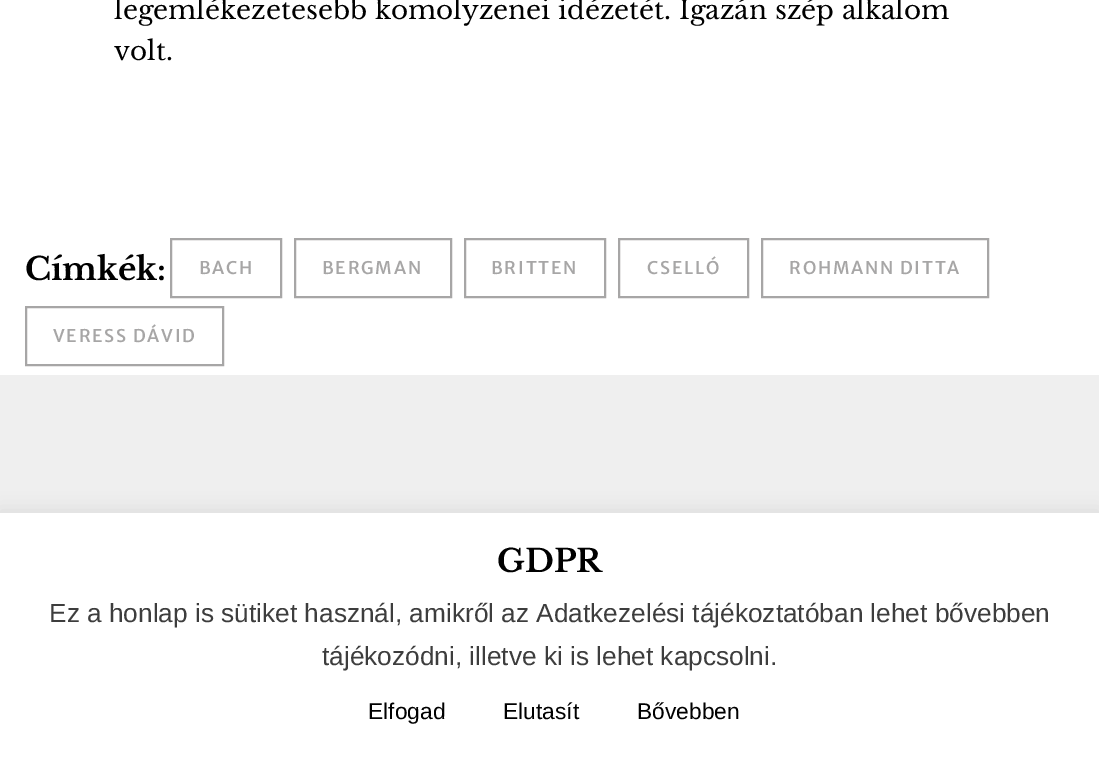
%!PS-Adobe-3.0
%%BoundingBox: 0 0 1099 759
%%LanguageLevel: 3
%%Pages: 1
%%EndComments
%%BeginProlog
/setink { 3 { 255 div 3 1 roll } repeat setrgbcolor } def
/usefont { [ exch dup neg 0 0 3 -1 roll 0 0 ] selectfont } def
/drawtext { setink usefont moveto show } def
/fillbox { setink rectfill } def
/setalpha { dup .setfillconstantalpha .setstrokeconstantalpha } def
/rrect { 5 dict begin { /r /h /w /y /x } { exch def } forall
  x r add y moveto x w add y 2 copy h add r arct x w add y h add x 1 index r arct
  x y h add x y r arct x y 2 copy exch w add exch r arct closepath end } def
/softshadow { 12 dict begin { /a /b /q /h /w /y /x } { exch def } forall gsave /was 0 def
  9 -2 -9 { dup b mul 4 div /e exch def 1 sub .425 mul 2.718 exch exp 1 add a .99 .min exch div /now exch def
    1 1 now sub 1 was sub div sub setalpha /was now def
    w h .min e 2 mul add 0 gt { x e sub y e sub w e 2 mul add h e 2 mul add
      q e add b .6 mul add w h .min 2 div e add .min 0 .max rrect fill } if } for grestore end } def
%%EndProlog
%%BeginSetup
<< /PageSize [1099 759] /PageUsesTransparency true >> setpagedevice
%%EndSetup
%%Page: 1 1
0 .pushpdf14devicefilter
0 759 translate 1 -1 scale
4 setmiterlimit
0 0 1099 759 255 255 255 fillbox
(legemlékezetesebb komolyzenei idézetét. Igazán szép alkalom) 114 19 /LibreBaskerville-Regular 26.25 0 0 0 drawtext
(volt.) 114 60 /LibreBaskerville-Regular 26.25 0 0 0 drawtext
(Címkék:) 25 280 /LibreBaskerville-Bold 31.5 0 0 0 drawtext
167 166 166 setink
2 setlinewidth
171 239 110 58 rectstroke
/MerriweatherSans-Medium 17.5 usefont
199 274 moveto 1.75 0 (BACH) ashow
295 239 156 58 rectstroke
322 274 moveto 1.75 0 (BERGMAN) ashow
465 239 140 58 rectstroke
491 274 moveto 1.75 0 (BRITTEN) ashow
619 239 129 58 rectstroke
647 274 moveto 1.75 0 (CSELLÓ) ashow
762 239 226 58 rectstroke
789 274 moveto 1.75 0 (ROHMANN DITTA) ashow
26 307 197 58 rectstroke
53 342 moveto 1.75 0 (VERESS DÁVID) ashow
0 375 1099 138 239 239 239 fillbox
172 171 171 setink
0 511 1099 247 0 9 0.3 softshadow
0 513 1099 246 255 255 255 fillbox
(GDPR) 497 572 /LibreBaskerville-Bold 31.5 0 0 0 drawtext
(Ez a honlap is sütiket használ, amikről az Adatkezelési tájékoztatóban lehet bővebben) 49 622 /LiberationSans-Regular 26.25 61 61 61 drawtext
(tájékozódni, illetve ki is lehet kapcsolni.) 322 665 /LiberationSans-Regular 26.25 61 61 61 drawtext
(Elfogad) 368 719 /LiberationSans-Regular 22.75 0 0 0 drawtext
(Elutasít) 503 719 /LiberationSans-Regular 22.75 0 0 0 drawtext
(Bővebben) 637 719 /LiberationSans-Regular 22.75 0 0 0 drawtext
.poppdf14devicefilter showpage
%%EOF
